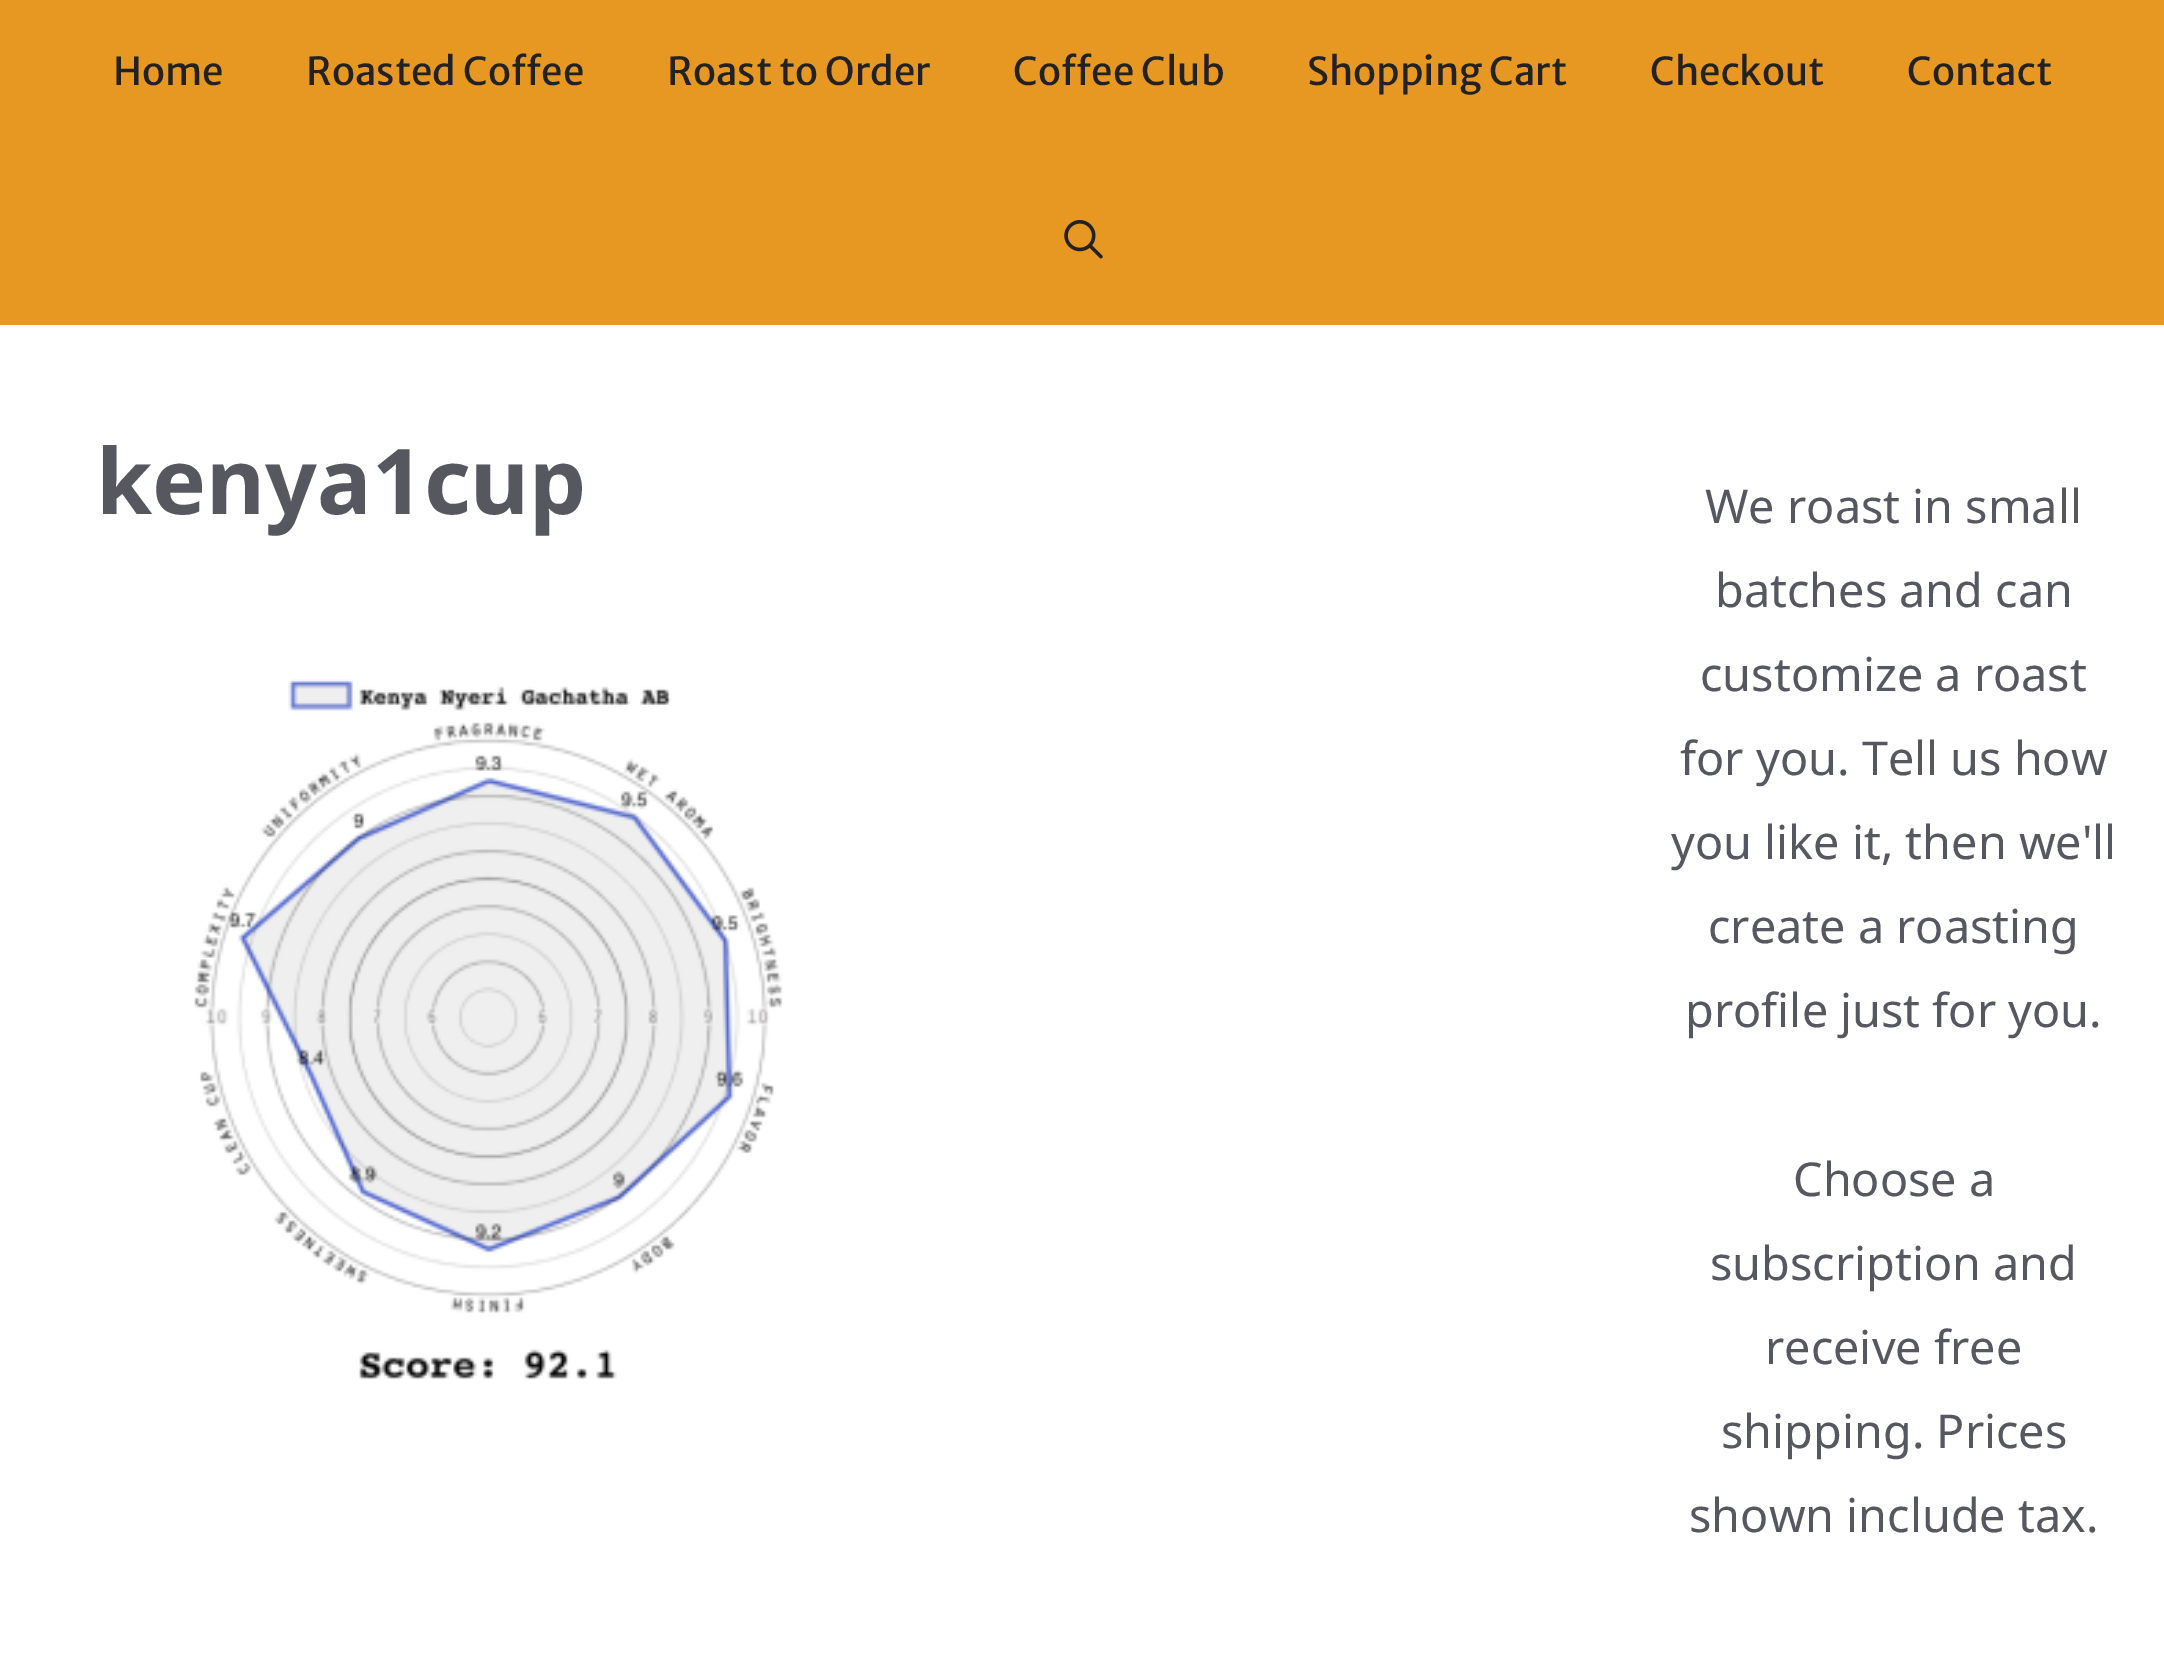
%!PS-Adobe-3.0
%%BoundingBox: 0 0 2164 1653
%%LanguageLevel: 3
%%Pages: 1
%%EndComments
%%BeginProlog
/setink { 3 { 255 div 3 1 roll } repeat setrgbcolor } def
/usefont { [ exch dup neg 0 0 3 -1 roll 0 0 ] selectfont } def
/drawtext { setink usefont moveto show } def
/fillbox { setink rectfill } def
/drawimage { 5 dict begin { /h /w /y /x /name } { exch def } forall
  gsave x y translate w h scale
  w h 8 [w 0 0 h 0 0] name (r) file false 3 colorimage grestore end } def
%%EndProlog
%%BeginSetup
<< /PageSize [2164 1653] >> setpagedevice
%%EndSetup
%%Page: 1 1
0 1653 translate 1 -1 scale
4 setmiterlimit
0 0 2164 1653 255 255 255 fillbox
0 0 2164 325 231 152 34 fillbox
(Home) 113 85 /MerriweatherSans-Regular 38.5 34 34 34 drawtext
(Roasted Coffee) 306 85 /MerriweatherSans-Regular 38.5 34 34 34 drawtext
(Roast to Order) 667 85 /MerriweatherSans-Regular 38.5 34 34 34 drawtext
(Coffee Club) 1013 85 /MerriweatherSans-Regular 38.5 34 34 34 drawtext
(Shopping Cart) 1307 85 /MerriweatherSans-Regular 38.5 34 34 34 drawtext
(Checkout) 1650 85 /MerriweatherSans-Regular 38.5 34 34 34 drawtext
(Contact) 1907 85 /MerriweatherSans-Regular 38.5 34 34 34 drawtext
(assets/img1.rgb) 1064 220 39 39 drawimage
(kenya1cup) 96 514 /NotoSans-Bold 90.75 87 87 96 drawtext
(assets/img2.rgb) 194 679 589 701 drawimage
(We roast in small) 1705 523 /NotoSans-Regular 46.75 87 87 96 drawtext
(batches and can) 1715 607 /NotoSans-Regular 46.75 87 87 96 drawtext
(customize a roast) 1700 691 /NotoSans-Regular 46.75 87 87 96 drawtext
(for you. Tell us how) 1680 775 /NotoSans-Regular 46.75 87 87 96 drawtext
(you like it, then we'll) 1671 859 /NotoSans-Regular 46.75 87 87 96 drawtext
(create a roasting) 1708 943 /NotoSans-Regular 46.75 87 87 96 drawtext
(profile just for you.) 1685 1027 /NotoSans-Regular 46.75 87 87 96 drawtext
(Choose a) 1793 1196 /NotoSans-Regular 46.75 87 87 96 drawtext
(subscription and) 1710 1280 /NotoSans-Regular 46.75 87 87 96 drawtext
(receive free) 1765 1364 /NotoSans-Regular 46.75 87 87 96 drawtext
(shipping. Prices) 1721 1448 /NotoSans-Regular 46.75 87 87 96 drawtext
(shown include tax.) 1689 1532 /NotoSans-Regular 46.75 87 87 96 drawtext
showpage
%%EOF
